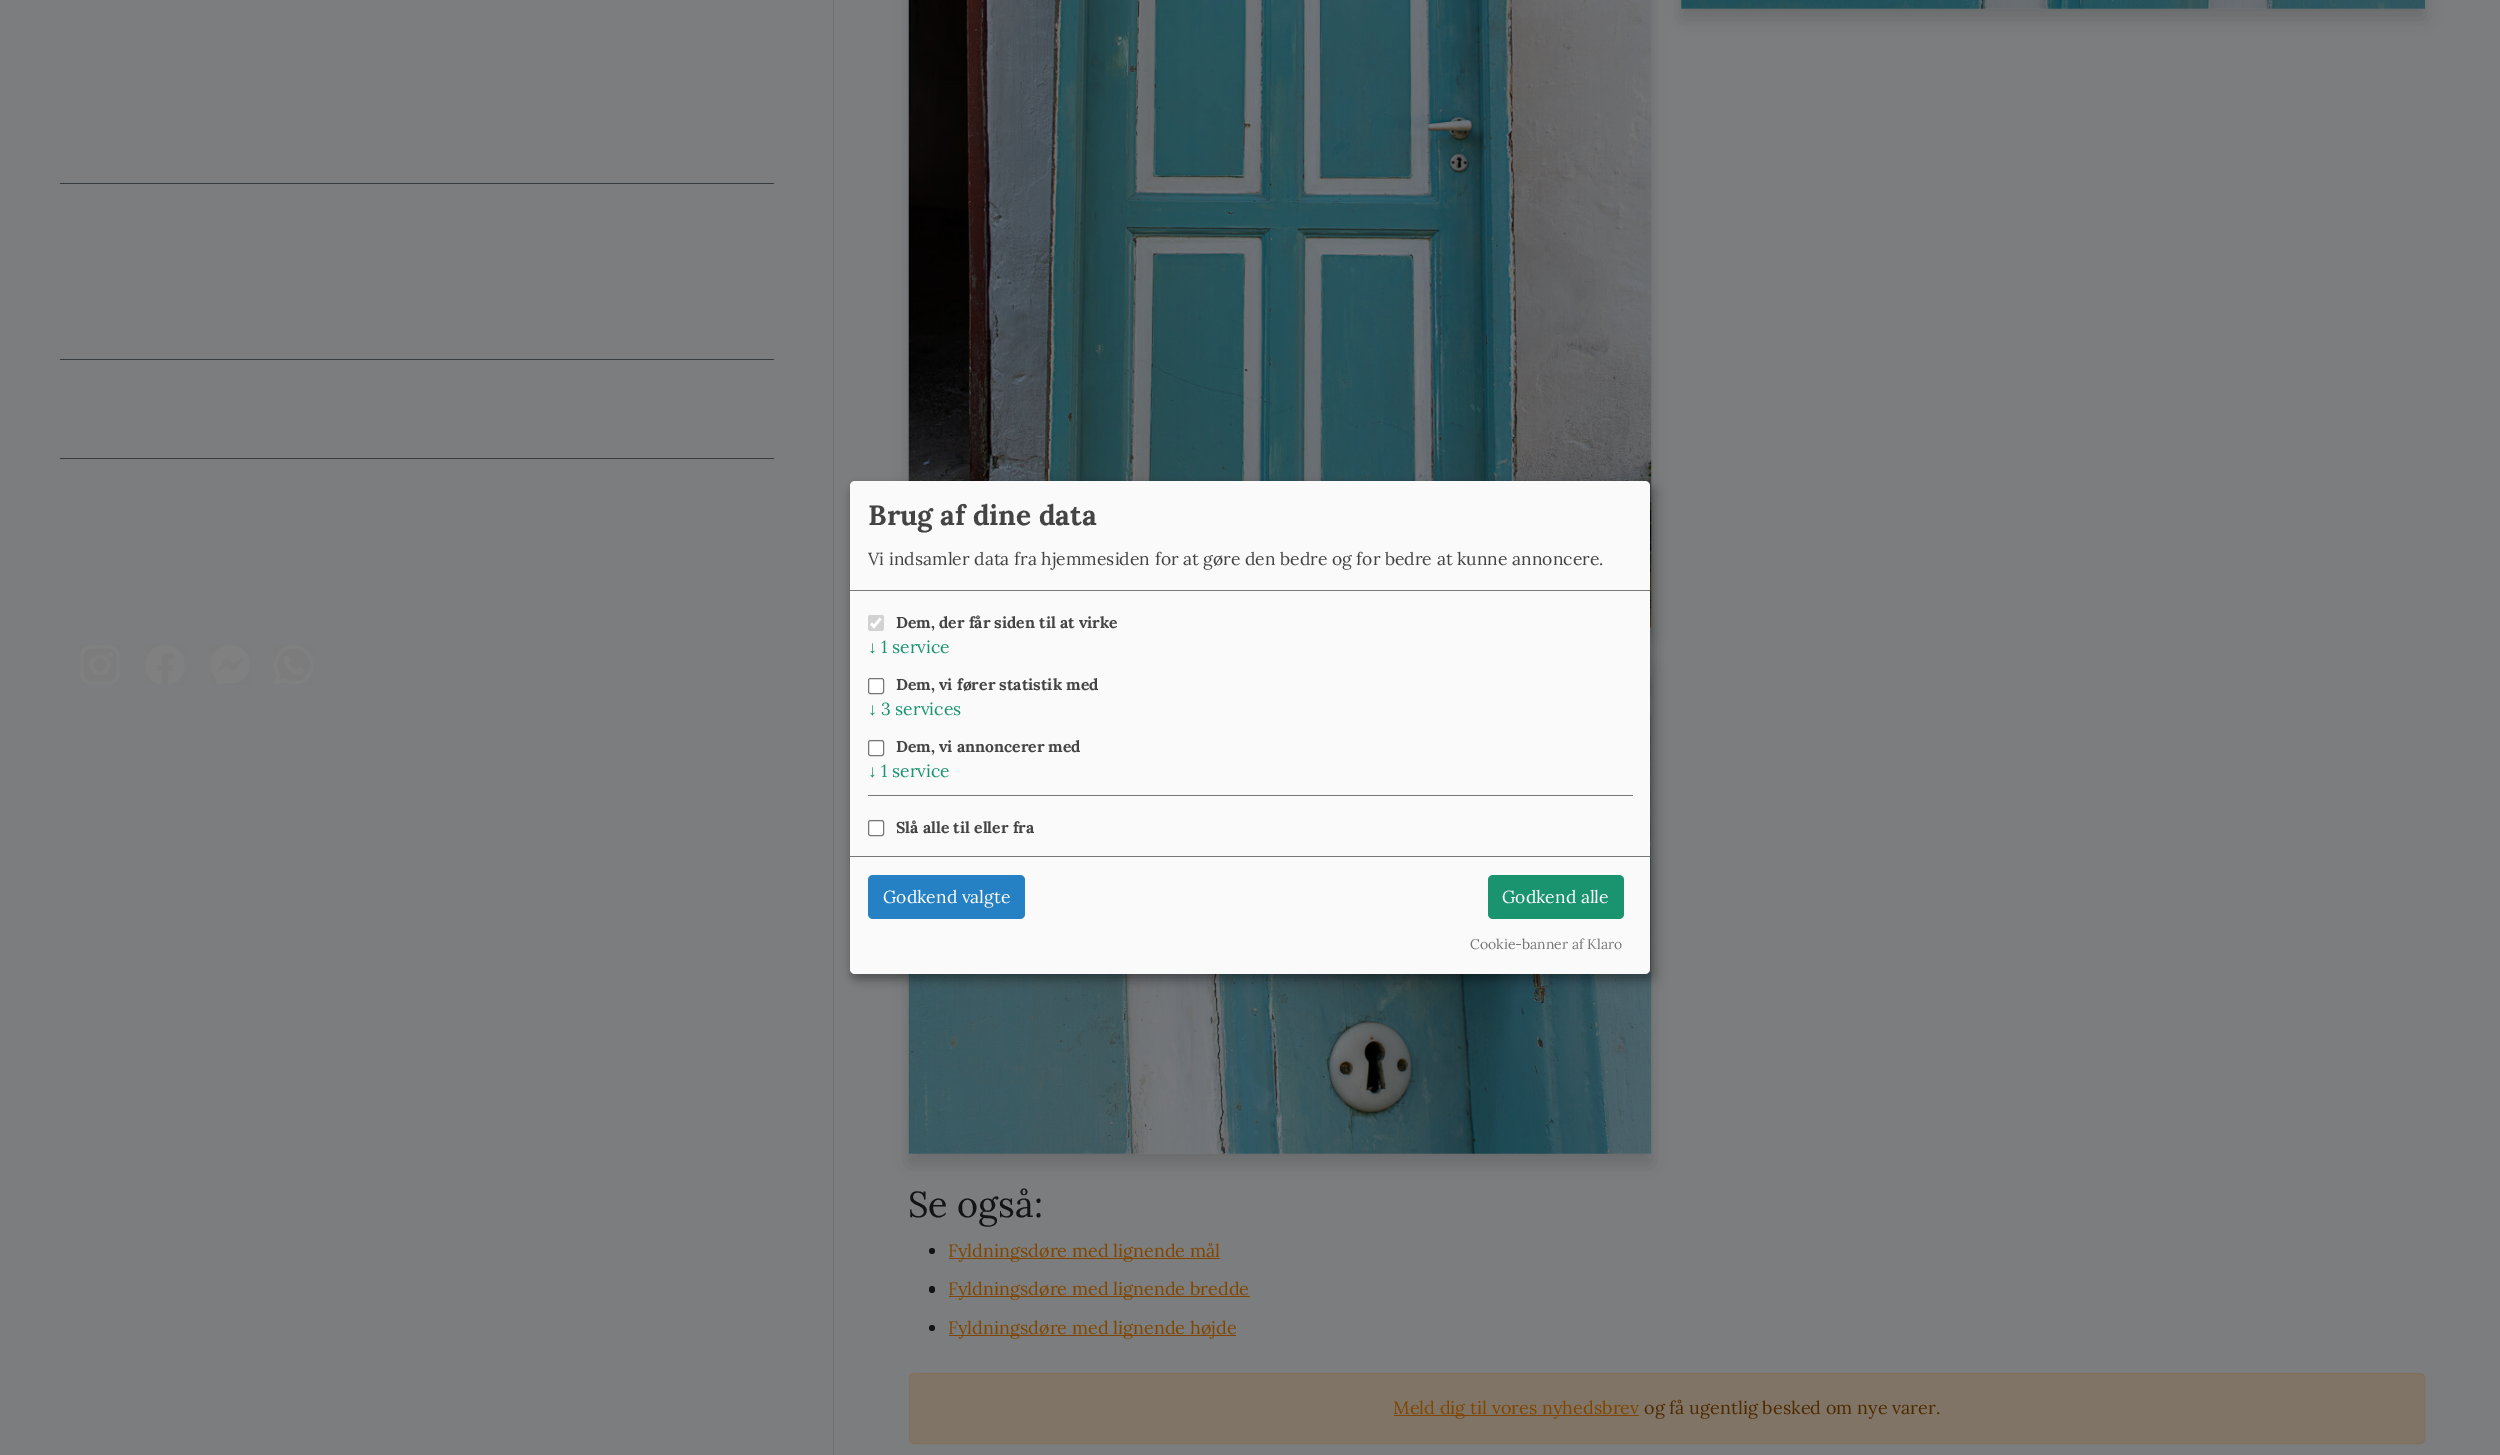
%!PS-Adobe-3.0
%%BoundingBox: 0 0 2500 1455
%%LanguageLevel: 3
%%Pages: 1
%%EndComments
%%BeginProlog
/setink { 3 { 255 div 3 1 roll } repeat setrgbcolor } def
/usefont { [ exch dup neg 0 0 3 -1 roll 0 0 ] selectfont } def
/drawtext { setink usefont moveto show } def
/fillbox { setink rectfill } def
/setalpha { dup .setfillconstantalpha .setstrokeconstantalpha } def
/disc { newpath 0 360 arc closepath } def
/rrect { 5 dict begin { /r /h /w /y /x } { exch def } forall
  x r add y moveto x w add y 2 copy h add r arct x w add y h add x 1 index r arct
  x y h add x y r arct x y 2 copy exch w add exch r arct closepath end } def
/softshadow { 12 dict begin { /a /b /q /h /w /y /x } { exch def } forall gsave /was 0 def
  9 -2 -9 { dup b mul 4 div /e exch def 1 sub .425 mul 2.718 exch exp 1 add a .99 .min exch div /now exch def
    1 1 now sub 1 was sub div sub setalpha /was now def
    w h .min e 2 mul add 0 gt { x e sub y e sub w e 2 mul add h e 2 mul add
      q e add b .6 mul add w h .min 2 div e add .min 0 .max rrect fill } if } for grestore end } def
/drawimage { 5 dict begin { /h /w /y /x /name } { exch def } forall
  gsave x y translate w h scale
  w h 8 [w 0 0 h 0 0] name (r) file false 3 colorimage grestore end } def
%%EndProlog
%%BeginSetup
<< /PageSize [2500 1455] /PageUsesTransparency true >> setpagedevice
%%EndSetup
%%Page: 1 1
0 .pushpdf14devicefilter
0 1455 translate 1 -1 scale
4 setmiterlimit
0 0 2500 1455 124 125 126 fillbox
0 0 0 setink
909 -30 742 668 0 10 0.15 softshadow
(assets/img5.rgb) 908 0 744 628 drawimage
909 668 742 496 0 10 0.15 softshadow
(assets/img7.rgb) 908 657 744 497 drawimage
856 488 800 492 5 6 0.19 softshadow
850 486 800 493 5 4 0.2 softshadow
250 250 250 setink
850 481 800 493 5 rrect fill
850 590 800 1 119 119 119 fillbox
(Brug af dine data) 868 525 /Lora-Bold 28 68 68 68 drawtext
(Vi indsamler data fra hjemmesiden for at gøre den bedre og for bedre at kunne annoncere.) 868 565 /Lora-Regular 17.5 68 68 68 drawtext
210 210 210 setink
868 615 16 16 2.5 rrect fill
255 255 255 setink
2.6 setlinewidth
871 623.5 moveto 874 626.5 lineto 880.5 618.5 lineto stroke
(Dem, der får siden til at virke) 896 628 /Lora-Bold 15.75 68 68 68 drawtext
(↓) 868 653 /LiberationSerif-Regular 17.5 26 147 111 drawtext
(1 service) 881 653 /Lora-Regular 17.5 26 147 111 drawtext
255 255 255 setink
868.5 678.5 15 15 2 rrect gsave fill grestore
118 118 118 setink
1 setlinewidth
stroke
(Dem, vi fører statistik med) 896 690 /Lora-Bold 15.75 68 68 68 drawtext
(↓) 868 715 /LiberationSerif-Regular 17.5 26 147 111 drawtext
(3 services) 881 715 /Lora-Regular 17.5 26 147 111 drawtext
255 255 255 setink
868.5 740.5 15 15 2 rrect gsave fill grestore
118 118 118 setink
stroke
(Dem, vi annoncerer med) 896 752 /Lora-Bold 15.75 68 68 68 drawtext
(↓) 868 777 /LiberationSerif-Regular 17.5 26 147 111 drawtext
(1 service) 881 777 /Lora-Regular 17.5 26 147 111 drawtext
868 795 765 1 119 119 119 fillbox
255 255 255 setink
868.5 820.5 15 15 2 rrect gsave fill grestore
118 118 118 setink
stroke
(Slå alle til eller fra) 896 833 /Lora-Bold 15.75 68 68 68 drawtext
850 856 800 1 119 119 119 fillbox
37 129 196 setink
868 875 157 44 5 rrect fill
(Godkend valgte) 883 903 /Lora-Regular 17.5 255 255 255 drawtext
26 147 111 setink
1488 875 136 44 5 rrect fill
(Godkend alle) 1502 903 /Lora-Regular 17.5 255 255 255 drawtext
(Cookie-banner af Klaro) 1470 949 /Lora-Regular 14 119 119 119 drawtext
833 0 1 1455 112 112 113 fillbox
60 183 714 1 54 59 63 fillbox
60 359 714 1 54 59 63 fillbox
60 458 714 1 54 59 63 fillbox
(assets/img1.rgb) 80 645 40 40 drawimage
(assets/img2.rgb) 145 645 40 40 drawimage
(assets/img3.rgb) 210 645 40 40 drawimage
(assets/img4.rgb) 274 645 39 40 drawimage
0 0 0 setink
1681 -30 744 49 0 10 0.15 softshadow
(assets/img6.rgb) 1681 0 744 9 drawimage
(Se også:) 908 1217 /Lora-Regular 36 17 19 21 drawtext
932 1251 3 disc fill
949 1258 271 1 128 70 0 fillbox
(Fyldningsdøre med lignende mål) 948 1257 /Lora-Regular 18 128 70 0 drawtext
17 19 21 setink
929 1286 6 7 3 rrect fill
949 1296 301 1 128 70 0 fillbox
(Fyldningsdøre med lignende bredde) 948 1295 /Lora-Regular 18 128 70 0 drawtext
17 19 21 setink
932 1328 3 disc fill
949 1335 287 1 128 70 0 fillbox
(Fyldningsdøre med lignende højde) 948 1334 /Lora-Regular 18 128 70 0 drawtext
128 116 102 setink
909.5 1373.5 1515 70 4.5 rrect gsave fill grestore
128 111 90 setink
stroke
1394 1415 245 1 128 70 0 fillbox
(Meld dig til vores nyhedsbrev) 1393 1414 /Lora-Regular 18 128 70 0 drawtext
(og få ugentlig besked om nye varer.) 1644 1414 /Lora-Regular 18 77 42 0 drawtext
.poppdf14devicefilter showpage
%%EOF
